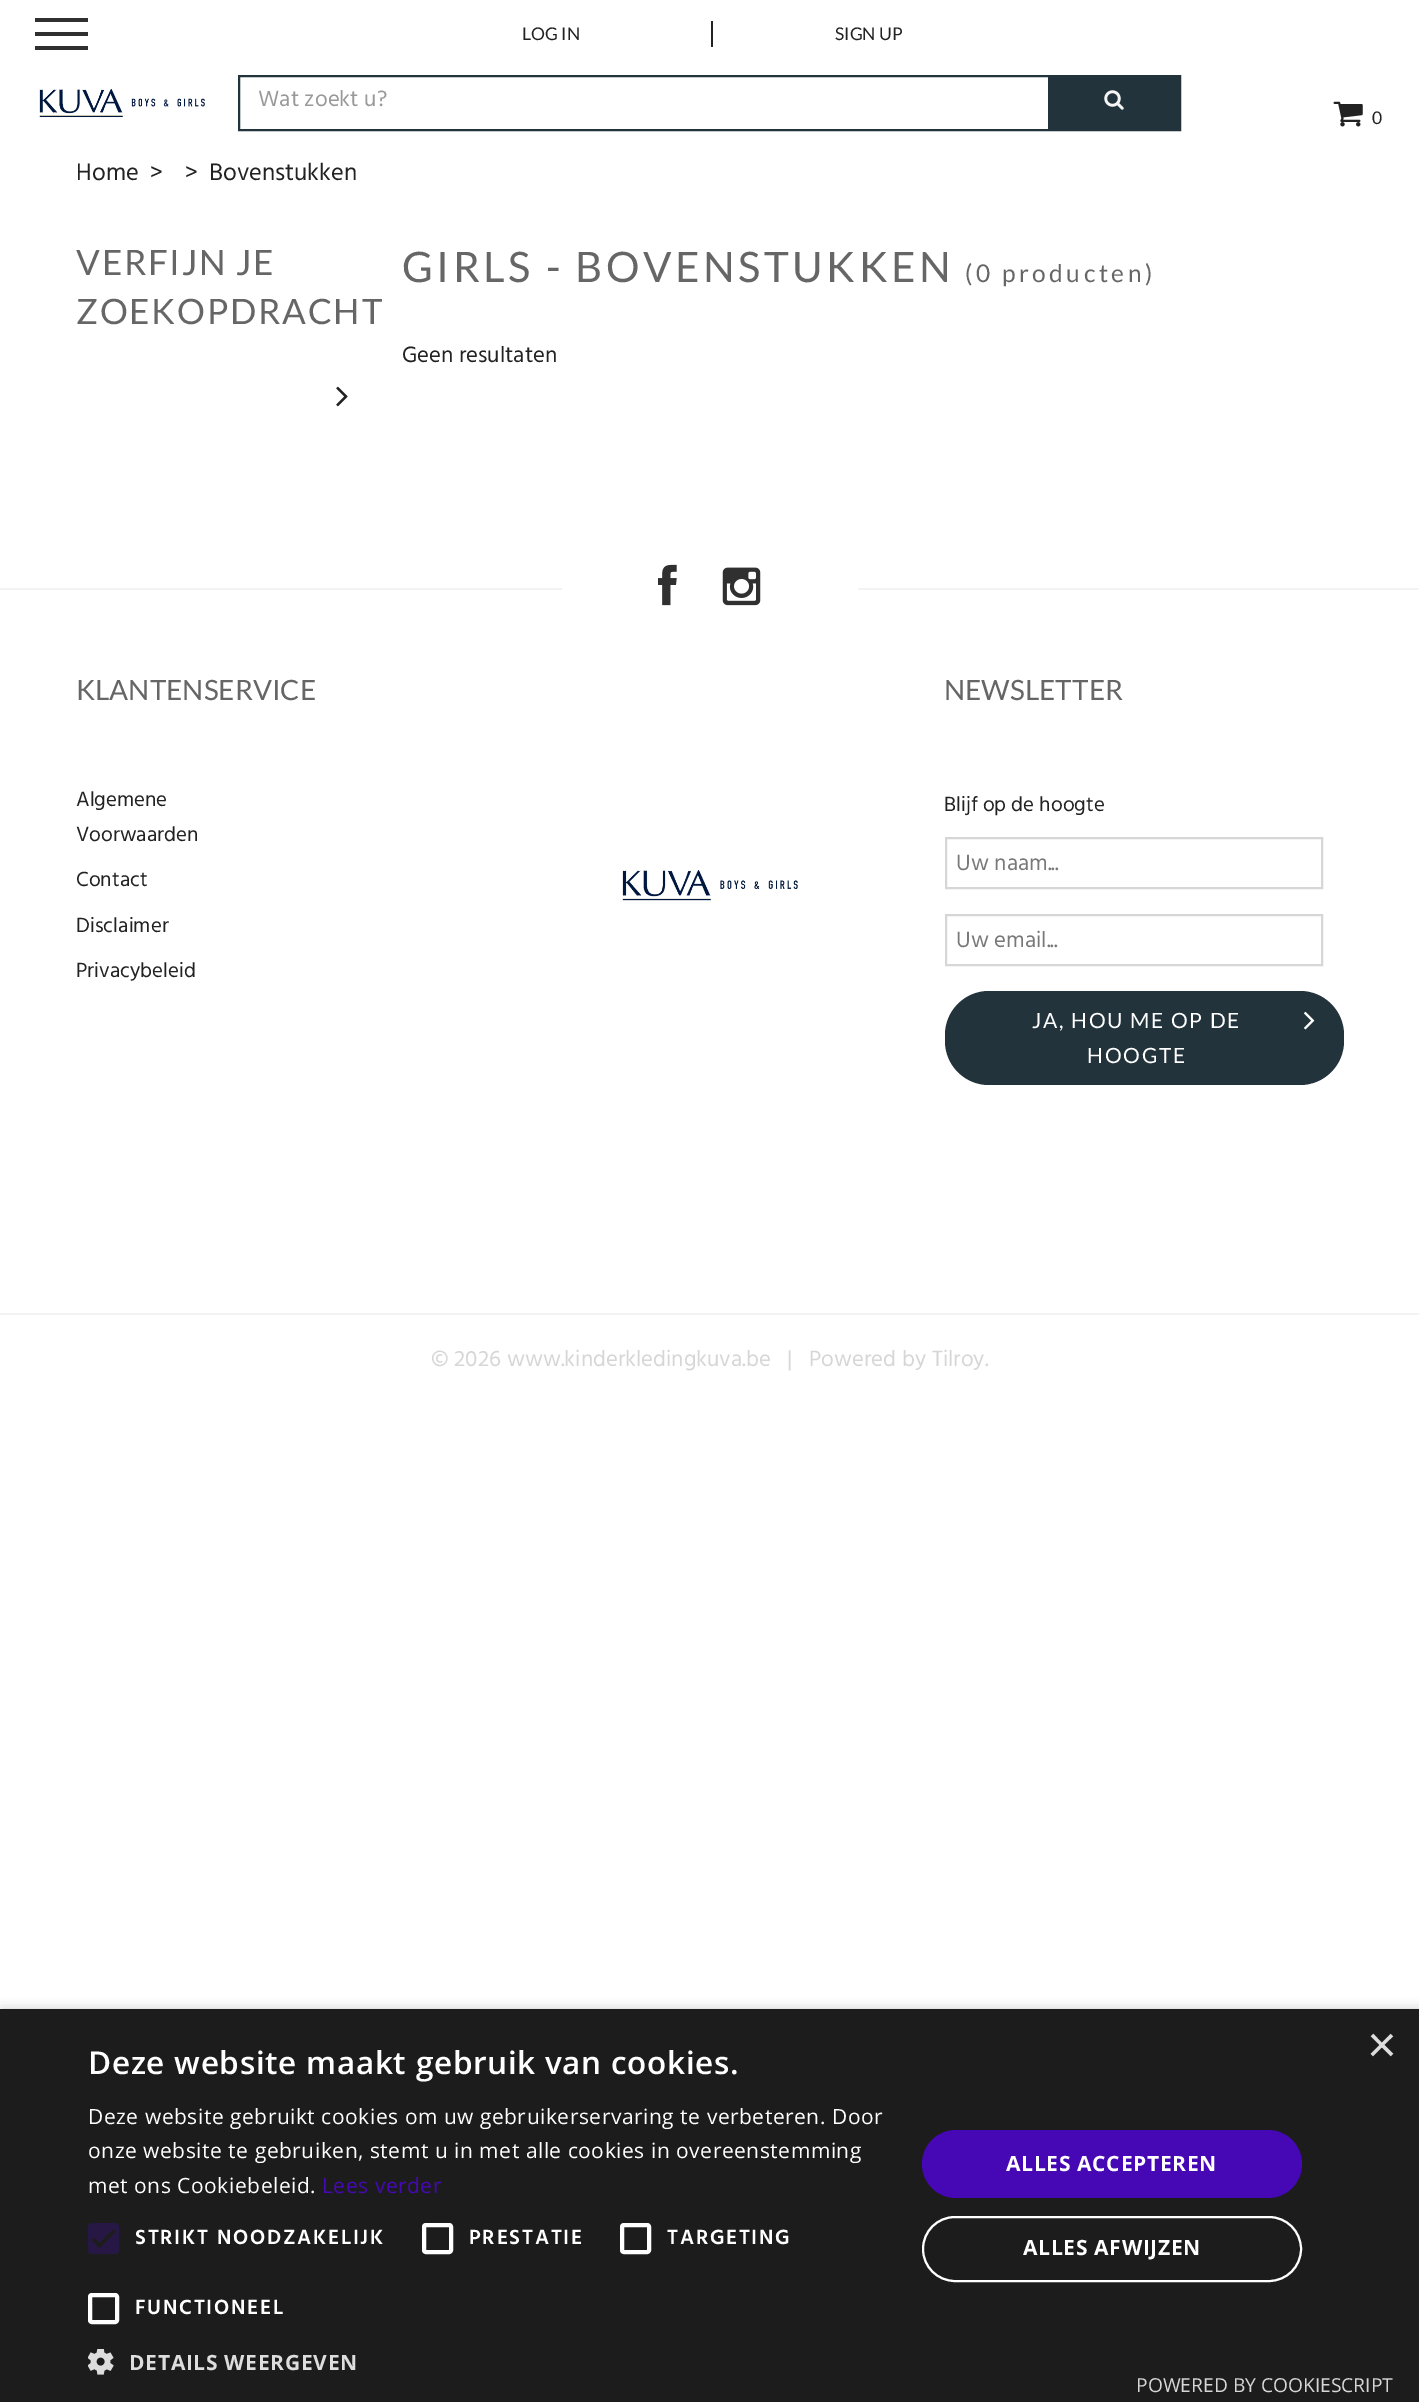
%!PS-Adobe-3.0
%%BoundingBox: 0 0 1419 2402
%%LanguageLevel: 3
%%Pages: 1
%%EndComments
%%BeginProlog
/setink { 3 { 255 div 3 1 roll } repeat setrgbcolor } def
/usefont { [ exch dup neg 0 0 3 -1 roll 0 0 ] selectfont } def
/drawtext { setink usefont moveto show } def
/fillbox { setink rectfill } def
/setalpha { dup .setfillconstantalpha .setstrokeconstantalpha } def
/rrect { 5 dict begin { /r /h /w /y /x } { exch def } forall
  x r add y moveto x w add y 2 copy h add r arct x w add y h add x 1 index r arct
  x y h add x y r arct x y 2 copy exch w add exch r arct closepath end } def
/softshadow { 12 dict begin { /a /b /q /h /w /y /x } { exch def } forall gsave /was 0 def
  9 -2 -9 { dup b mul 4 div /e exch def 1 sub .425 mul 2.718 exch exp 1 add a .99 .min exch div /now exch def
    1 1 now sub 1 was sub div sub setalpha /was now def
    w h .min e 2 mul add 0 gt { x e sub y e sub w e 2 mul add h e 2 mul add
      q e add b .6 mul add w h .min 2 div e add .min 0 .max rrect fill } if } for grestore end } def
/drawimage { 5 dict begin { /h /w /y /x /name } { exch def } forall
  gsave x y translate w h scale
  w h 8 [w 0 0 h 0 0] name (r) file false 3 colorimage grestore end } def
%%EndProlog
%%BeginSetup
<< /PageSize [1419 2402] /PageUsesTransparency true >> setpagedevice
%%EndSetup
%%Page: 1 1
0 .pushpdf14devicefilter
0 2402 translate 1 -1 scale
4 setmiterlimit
0 0 1419 2402 255 255 255 fillbox
35 18 53 4 48 48 48 fillbox
35 32 53 4 48 48 48 fillbox
35 46 53 4 48 48 48 fillbox
(LOG IN) 522 40 /Lato-Regular 17.5 34 34 34 drawtext
711 21 2 26 34 34 34 fillbox
(SIGN UP) 835 40 /Lato-Regular 17.5 34 34 34 drawtext
(assets/img1.rgb) 39 89 166 29 drawimage
34 51 59 setink
2 setlinewidth
239 76 941 54 rectstroke
(Wat zoekt u?) 258 106 /Hind-Regular 22.75 153 153 153 drawtext
1048 77 131 52 34 51 59 fillbox
(assets/img2.rgb) 1104 90 20 20 drawimage
(assets/img3.rgb) 1333 101 30 26 drawimage
/Lato-Regular 17.5 usefont
34 34 34 setink
1372 124 moveto 1.75 0 (0) ashow
(Home) 76 180 /Hind-Regular 24.5 34 34 34 drawtext
(>) 150 180 /Hind-Regular 24.5 34 34 34 drawtext
(>) 185 180 /Hind-Regular 24.5 34 34 34 drawtext
(Bovenstukken) 209 180 /Hind-Regular 24.5 34 34 34 drawtext
/Lato-Regular 35 usefont
102 102 102 setink
76 275 moveto 1.75 0 (VERFIJN JE) ashow
76 324 moveto 1.75 0 (ZOEKOPDRACHT) ashow
(assets/img4.rgb) 336 386 12 21 drawimage
/Lato-Regular 42 usefont
402 282 moveto 3.5 0 (GIRLS - BOVENSTUKKEN) ashow
/Lato-Regular 24.5 usefont
965 282 moveto 3.5 0 (\(0 producten\)) ashow
(Geen resultaten) 402 362 /Hind-Regular 22.75 34 34 34 drawtext
0 588 562 2 243 243 244 fillbox
(assets/img5.rgb) 658 564 19 42 drawimage
(assets/img6.rgb) 722 567 39 39 drawimage
858 588 561 2 243 243 244 fillbox
(KLANTENSERVICE) 76 700 /Lato-Regular 28 102 102 102 drawtext
(Algemene) 76 806 /Hind-Regular 21 34 34 34 drawtext
(Voorwaarden) 76 841 /Hind-Regular 21 34 34 34 drawtext
(Contact) 76 886 /Hind-Regular 21 34 34 34 drawtext
(Disclaimer) 76 932 /Hind-Regular 21 34 34 34 drawtext
(Privacybeleid) 76 977 /Hind-Regular 21 34 34 34 drawtext
(assets/img7.rgb) 622 870 176 31 drawimage
(NEWSLETTER) 944 700 /Lato-Regular 28 102 102 102 drawtext
(Blijf op de hoogte) 944 811 /Hind-Regular 21 34 34 34 drawtext
214 214 214 setink
946 838 376 50 rectstroke
(Uw naam...) 956 870 /Hind-Regular 22.75 121 121 121 drawtext
214 214 214 setink
946 915 376 50 rectstroke
(Uw email...) 956 947 /Hind-Regular 22.75 121 121 121 drawtext
34 51 59 setink
945 991 399 94 44 rrect fill
/Lato-Regular 21 usefont
255 255 255 setink
1032 1028 moveto 1.75 0 (JA, HOU ME OP DE) ashow
(assets/img8.rgb) 1304 1011 11 19 drawimage
1087 1063 moveto 1.75 0 (HOOGTE) ashow
0 1313 1419 2 243 243 244 fillbox
(© 2026 www.kinderkledingkuva.be) 431 1366 /Hind-Regular 22.75 214 214 214 drawtext
(|) 787 1366 /Hind-Regular 22.75 214 214 214 drawtext
(Powered by Tilroy.) 809 1366 /Hind-Regular 22.75 214 214 214 drawtext
0 0 0 setink
2 2013 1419 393 0 7 0.35 softshadow
0 2009 1419 393 28 28 28 fillbox
(×) 1367 2062 /LiberationSans-Regular 51 221 221 221 drawtext
/OpenSans-SemiBold 31.5 usefont
255 255 255 setink
88 2074 moveto 0.7 0 (Deze website maakt gebruik van cookies.) ashow
/OpenSans-Regular 21 usefont
88 2124 moveto 0.53 0 (Deze website gebruikt cookies om uw gebruikerservaring te verbeteren. Door) ashow
88 2158 moveto 0.53 0 (onze website te gebruiken, stemt u in met alle cookies in overeenstemming) ashow
88 2193 moveto 0.53 0 (met ons Cookiebeleid.) ashow
70 8 181 setink
322 2193 moveto 0.53 0 (Lees verder) ashow
39 23 68 setink
88 2223 31 31 4 rrect fill
28 28 28 setink
3.2 setlinewidth
93 2239 moveto 99.5 2245.5 lineto 114.5 2230.5 lineto stroke
/Hind-SemiBold 21 usefont
255 255 255 setink
135 2244 moveto 1.75 0 (STRIKT NOODZAKELIJK) ashow
4 setlinewidth
424 2225 27 27 2 rrect stroke
469 2244 moveto 1.75 0 (PRESTATIE) ashow
622 2225 27 27 2 rrect stroke
667 2244 moveto 1.75 0 (TARGETING) ashow
90 2295 27 27 2 rrect stroke
135 2314 moveto 1.75 0 (FUNCTIONEEL) ashow
(assets/img9.rgb) 88 2349 26 26 drawimage
/OpenSans-Bold 21 usefont
221 221 221 setink
129 2370 moveto 0.7 0 (DETAILS WEERGEVEN) ashow
70 8 181 setink
922 2130 380 68 34 rrect fill
255 255 255 setink
1006 2171 moveto 0.7 0 (ALLES ACCEPTEREN) ashow
2 setlinewidth
923 2217 378 64 32 rrect stroke
1023 2255 moveto 0.7 0 (ALLES AFWIJZEN) ashow
(POWERED BY COOKIESCRIPT) 1136 2392 /OpenSans-Regular 19.25 214 214 214 drawtext
.poppdf14devicefilter showpage
%%EOF
